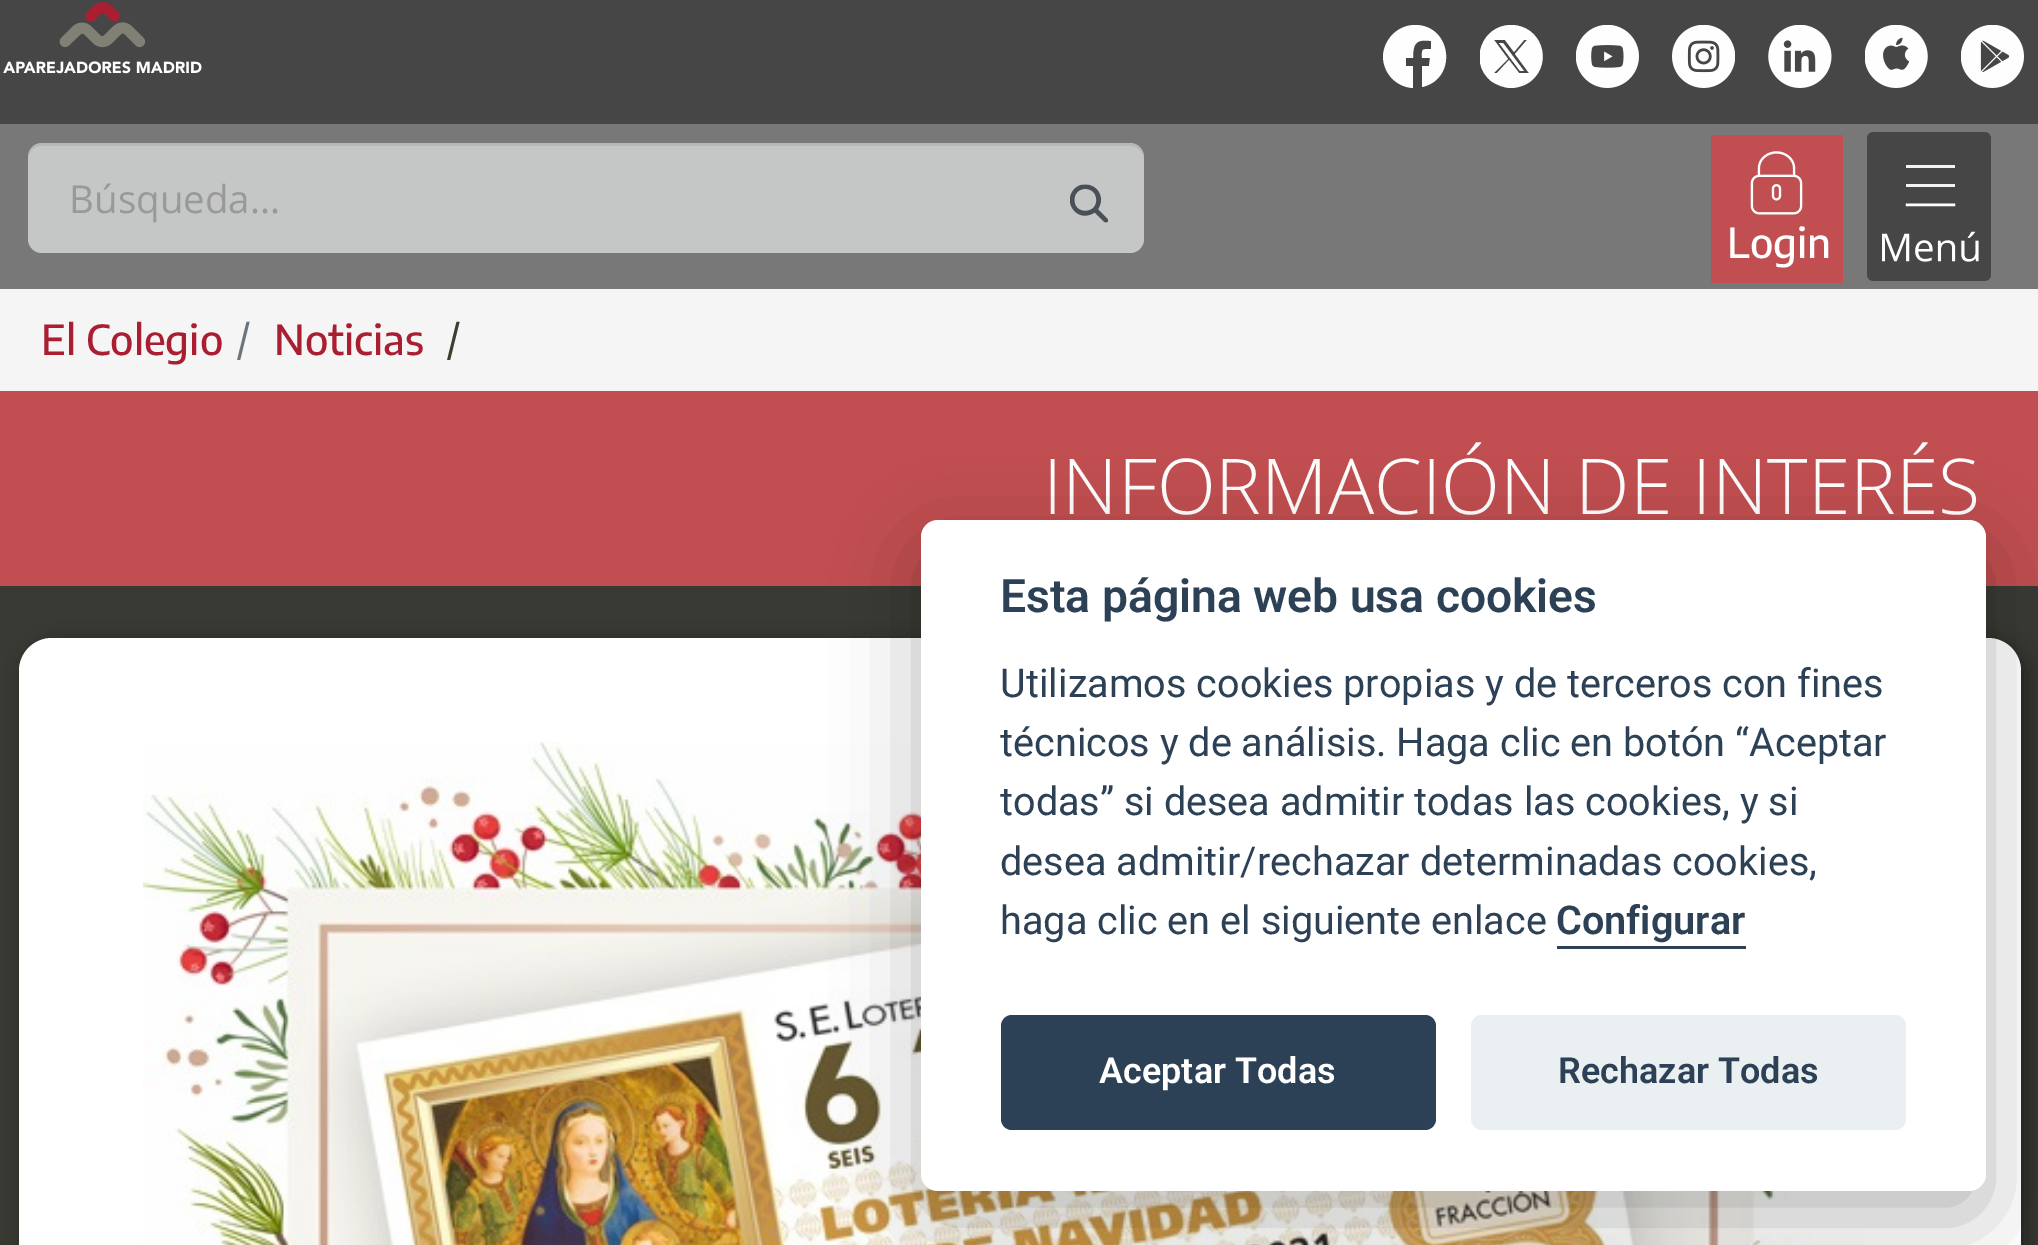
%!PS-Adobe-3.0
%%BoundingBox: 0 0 2038 1245
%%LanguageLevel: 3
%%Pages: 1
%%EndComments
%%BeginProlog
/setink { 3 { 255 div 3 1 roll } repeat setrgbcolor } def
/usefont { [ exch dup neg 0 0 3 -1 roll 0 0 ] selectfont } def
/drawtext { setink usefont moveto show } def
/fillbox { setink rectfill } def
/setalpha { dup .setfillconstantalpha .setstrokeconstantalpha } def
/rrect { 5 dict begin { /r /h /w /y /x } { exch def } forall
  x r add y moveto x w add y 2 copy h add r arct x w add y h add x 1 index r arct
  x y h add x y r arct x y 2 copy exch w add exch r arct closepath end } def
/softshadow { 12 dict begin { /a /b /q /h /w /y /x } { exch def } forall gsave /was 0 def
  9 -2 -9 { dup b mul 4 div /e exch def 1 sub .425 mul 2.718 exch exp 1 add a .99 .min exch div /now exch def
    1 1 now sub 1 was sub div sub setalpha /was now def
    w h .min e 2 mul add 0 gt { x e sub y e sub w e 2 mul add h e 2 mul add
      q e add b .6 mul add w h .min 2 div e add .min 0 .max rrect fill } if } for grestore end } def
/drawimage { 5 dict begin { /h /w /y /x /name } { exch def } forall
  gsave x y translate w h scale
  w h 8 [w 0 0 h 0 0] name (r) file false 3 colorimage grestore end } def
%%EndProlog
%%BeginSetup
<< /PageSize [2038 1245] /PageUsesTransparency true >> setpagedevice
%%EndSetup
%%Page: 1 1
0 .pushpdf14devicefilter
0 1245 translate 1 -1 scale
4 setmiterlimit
0 0 2038 1245 70 70 70 fillbox
(assets/img1.rgb) 3 2 199 72 drawimage
254 254 254 setink
1415 25 moveto 1452 25 1458 79 1422 87 curveto 1422 66 lineto 1429 66 lineto 1430 58 lineto 1422 58 lineto 1422 49 1421 49 1431 49 curveto 1431 41 lineto 1416 39 1413 43 1413 58 curveto 1406 58 lineto 1406 66 lineto 1413 66 lineto 1413 88 lineto 1396 87 1383 73 1383 56 curveto 1384 39 1398 25 1415 25 curveto eofill
gsave
1480 25 63 63 rectclip
1511 88 moveto 1504 88 1497 85 1491 81 curveto 1468 62 1482 25 1511 25 curveto 1541 25 1554 62 1531 81 curveto 1526 85 1518 88 1511 88 curveto closepath 1509 60 moveto 1519 73 lineto 1529 73 lineto 1515 54 lineto 1527 40 lineto 1524 40 lineto 1514 52 lineto 1505 40 lineto 1494 40 lineto 1508 59 lineto 1494 73 lineto 1497 73 lineto closepath 1524 71 moveto 1520 71 lineto 1499 43 lineto 1503 43 lineto closepath fill
grestore
(assets/img2.rgb) 1576 25 63 63 drawimage
(assets/img3.rgb) 1672 25 63 63 drawimage
(assets/img4.rgb) 1768 25 64 63 drawimage
(assets/img5.rgb) 1865 25 63 63 drawimage
(assets/img6.rgb) 1961 25 63 63 drawimage
0 124 2038 165 120 120 120 fillbox
197 198 198 setink
28 143 1116 110 14 rrect fill
0.07 setalpha
0 0 0 setink
41 146 moveto 1130 146 lineto 1138 146 1144 152 1144 160 curveto 1144 157 lineto 1144 149 1138 143 1130 143 curveto 42 143 lineto 34 143 28 149 28 157 curveto 28 160 lineto 28 152 34 146 41 146 curveto closepath fill
1 setalpha
(Búsqueda…) 69 213 /OpenSans-Regular 38.5 153 153 153 drawtext
(assets/img7.rgb) 1070 184 38 39 drawimage
1711 135 132 148 193 79 81 fillbox
(assets/img8.rgb) 1750 151 53 64 drawimage
(Login) 1727 258 /EncodeSans-Medium 41.25 255 255 255 drawtext
(assets/img9.rgb) 1867 132 124 149 drawimage
0 289 2038 102 245 245 245 fillbox
(El Colegio) 41 355 /EncodeSans-Medium 41.25 170 30 50 drawtext
(/) 237 355 /EncodeSans-Regular 41.25 108 117 125 drawtext
(Noticias) 274 355 /EncodeSans-Medium 41.25 170 30 50 drawtext
(/) 447 355 /EncodeSans-Regular 41.25 62 62 47 drawtext
0 586 2038 659 58 58 53 fillbox
0 391 2038 195 193 79 81 fillbox
0 0 0 setink
25 644 2002 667 33 11 0.4 softshadow
255 255 255 setink
19 638 2002 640 33 rrect fill
(INFORMACIÓN DE INTERÉS) 1043 514 /OpenSans-Light 77 255 255 255 drawtext
(assets/img10.rgb) 143 742 1720 503 drawimage
2 2 3 setink
921 547 1065 671 17 41 0.28 softshadow
255 255 255 setink
921 520 1065 671 17 rrect fill
(Esta página web usa cookies) 1000 612 /Roboto-SemiBold 46.25 45 65 86 drawtext
(Utilizamos cookies propias y de terceros con fines) 1000 697 /Roboto-Regular 39.6 45 65 86 drawtext
(técnicos y de análisis. Haga clic en botón “Aceptar) 1000 756 /Roboto-Regular 39.6 45 65 86 drawtext
(todas” si desea admitir todas las cookies, y si) 1000 815 /Roboto-Regular 39.6 45 65 86 drawtext
(desea admitir/rechazar determinadas cookies,) 1000 875 /Roboto-Regular 39.6 45 65 86 drawtext
(haga clic en el siguiente enlace) 1000 934 /Roboto-Regular 39.6 45 65 86 drawtext
(Configurar) 1556 934 /Roboto-SemiBold 39.6 45 65 86 drawtext
1557 946 189 3 45 65 86 fillbox
1001 1015 435 115 11 rrect fill
(Aceptar Todas) 1099 1083 /Roboto-SemiBold 36 255 255 255 drawtext
234 239 242 setink
1471 1015 435 115 11 rrect fill
(Rechazar Todas) 1558 1083 /Roboto-SemiBold 36 45 65 86 drawtext
.poppdf14devicefilter showpage
%%EOF
